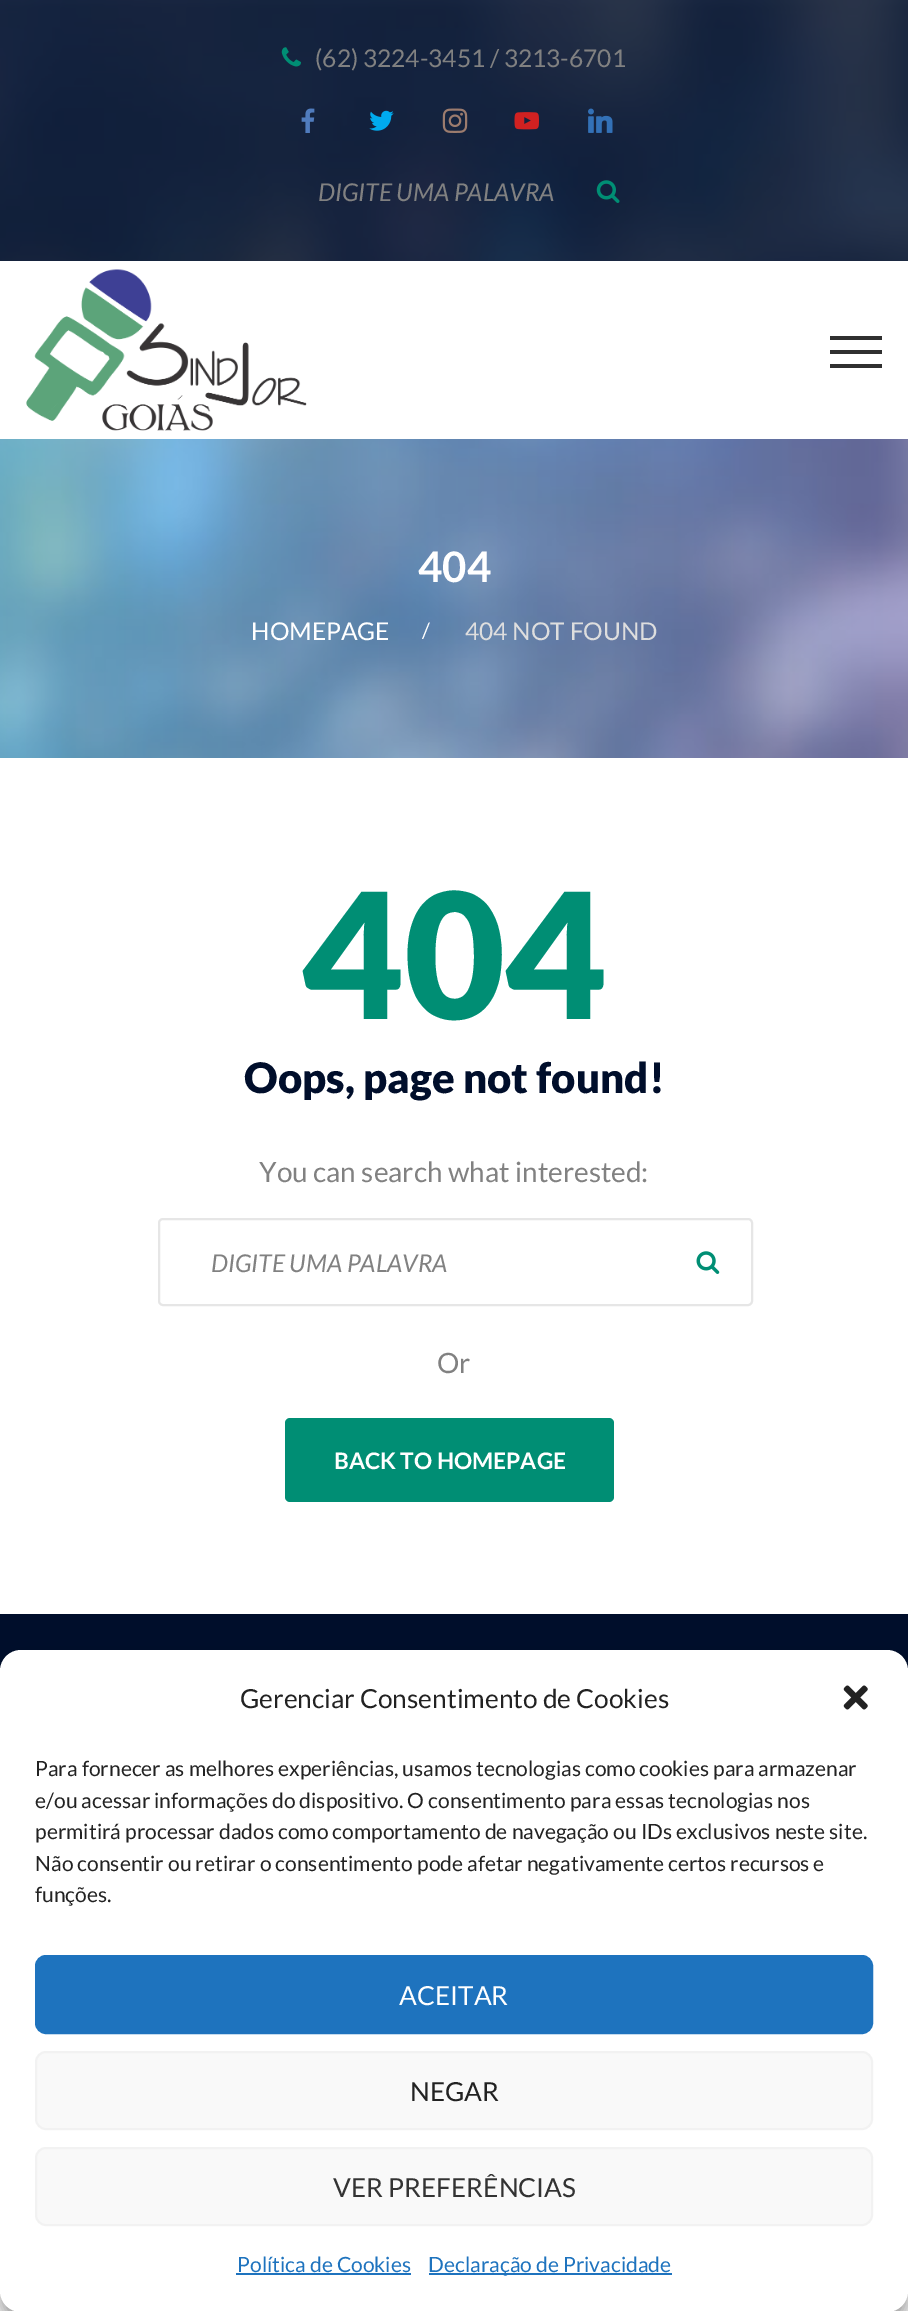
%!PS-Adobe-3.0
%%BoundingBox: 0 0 908 2311
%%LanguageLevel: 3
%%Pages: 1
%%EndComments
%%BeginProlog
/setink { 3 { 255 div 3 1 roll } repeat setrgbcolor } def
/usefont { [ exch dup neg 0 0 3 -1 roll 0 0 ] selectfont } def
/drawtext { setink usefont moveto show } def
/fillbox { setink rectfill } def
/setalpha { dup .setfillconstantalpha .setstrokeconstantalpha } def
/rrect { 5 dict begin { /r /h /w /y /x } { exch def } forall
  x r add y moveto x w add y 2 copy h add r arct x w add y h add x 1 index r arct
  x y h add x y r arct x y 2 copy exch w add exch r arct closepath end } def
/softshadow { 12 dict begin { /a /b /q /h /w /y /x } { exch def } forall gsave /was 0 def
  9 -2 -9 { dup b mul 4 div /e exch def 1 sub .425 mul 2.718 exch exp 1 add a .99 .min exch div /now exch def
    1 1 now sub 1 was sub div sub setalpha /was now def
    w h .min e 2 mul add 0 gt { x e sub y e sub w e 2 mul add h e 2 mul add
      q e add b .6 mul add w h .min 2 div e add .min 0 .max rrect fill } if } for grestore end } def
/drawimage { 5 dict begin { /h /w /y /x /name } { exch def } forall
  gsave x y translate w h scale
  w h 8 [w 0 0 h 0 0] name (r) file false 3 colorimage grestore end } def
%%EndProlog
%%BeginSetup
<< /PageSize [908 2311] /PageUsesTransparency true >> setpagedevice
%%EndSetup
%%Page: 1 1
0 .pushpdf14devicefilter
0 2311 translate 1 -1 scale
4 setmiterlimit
0 0 908 2311 255 255 255 fillbox
(assets/img1.rgb) 0 0 908 261 drawimage
(assets/img2.rgb) 281 47 20 20 drawimage
(\(62\) 3224-3451 / 3213-6701) 315 67 /Lato-Regular 24.5 129 129 129 drawtext
(assets/img3.rgb) 301 108 14 25 drawimage
(assets/img4.rgb) 369 110 25 21 drawimage
(assets/img5.rgb) 442 108 26 25 drawimage
(assets/img6.rgb) 514 112 25 18 drawimage
(assets/img7.rgb) 588 108 25 25 drawimage
(DIGITE UMA PALAVRA) 318 201 /Lato-Italic 24.5 129 129 129 drawtext
(assets/img8.rgb) 596 180 24 23 drawimage
(assets/img9.rgb) 26 269 281 162 drawimage
830 350 52 4 48 48 48 fillbox
830 336 52 4 48 48 48 fillbox
830 364 52 4 48 48 48 fillbox
(assets/img10.rgb) 0 439 908 319 drawimage
(404) 418 582 /Lato-Bold 42 255 255 255 drawtext
(HOMEPAGE) 251 640 /Lato-Regular 24.5 255 255 255 drawtext
(/) 422 638 /Lato-Regular 21 255 255 255 drawtext
(404 NOT FOUND) 465 640 /Lato-Regular 24.5 222 222 222 drawtext
(404) 302 1019 /Lato-Black 175 0 142 116 drawtext
(Oops, page not found!) 244 1093 /Lato-Black 42 0 14 43 drawtext
(You can search what interested:) 259 1182 /Lato-Regular 28 129 129 129 drawtext
230 230 230 setink
2 setlinewidth
159 1219 593 86 4 rrect stroke
(DIGITE UMA PALAVRA) 211 1272 /Lato-Italic 24.5 129 129 129 drawtext
(assets/img11.rgb) 696 1251 24 23 drawimage
(Or) 437 1373 /Lato-Regular 28 129 129 129 drawtext
0 142 116 setink
285 1418 329 84 5 rrect fill
(BACK TO HOMEPAGE) 334 1469 /Lato-Bold 22.75 255 255 255 drawtext
0 1614 908 57 0 14 43 fillbox
0 0 0 setink
0 1661 908 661 21 5 0.23 softshadow
0 1668 908 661 21 17.5 0.19 softshadow
255 255 255 setink
0 1650 908 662 21 rrect fill
(Gerenciar Consentimento de Cookies) 240 1708 /Lato-Regular 26.25 34 34 34 drawtext
(assets/img12.rgb) 843 1685 25 25 drawimage
(Para fornecer as melhores experiências, usamos tecnologias como cookies para armazenar) 35 1776 /Lato-Regular 21 34 34 34 drawtext
(e/ou acessar informações do dispositivo. O consentimento para essas tecnologias nos) 35 1808 /Lato-Regular 21 34 34 34 drawtext
(permitirá processar dados como comportamento de navegação ou IDs exclusivos neste site.) 35 1839 /Lato-Regular 21 34 34 34 drawtext
(Não consentir ou retirar o consentimento pode afetar negativamente certos recursos e) 35 1871 /Lato-Regular 21 34 34 34 drawtext
(funções.) 35 1902 /Lato-Regular 21 34 34 34 drawtext
30 115 190 setink
36 1956 836 77 10 rrect gsave fill grestore
stroke
(ACEITAR) 399 2005 /Lato-Regular 26.25 255 255 255 drawtext
249 249 249 setink
36 2052 836 77 10 rrect gsave fill grestore
242 242 242 setink
stroke
(NEGAR) 410 2101 /Lato-Regular 26.25 34 34 34 drawtext
249 249 249 setink
36 2148 836 77 10 rrect gsave fill grestore
242 242 242 setink
stroke
(VER PREFERÊNCIAS) 333 2197 /Lato-Regular 26.25 51 51 51 drawtext
(Política de Cookies) 237 2272 /Lato-Regular 21 30 115 190 drawtext
236 2273 175 2 30 115 190 fillbox
429 2273 243 2 30 115 190 fillbox
(Declaração de Privacidade) 428 2272 /Lato-Regular 21 30 115 190 drawtext
.poppdf14devicefilter showpage
%%EOF
